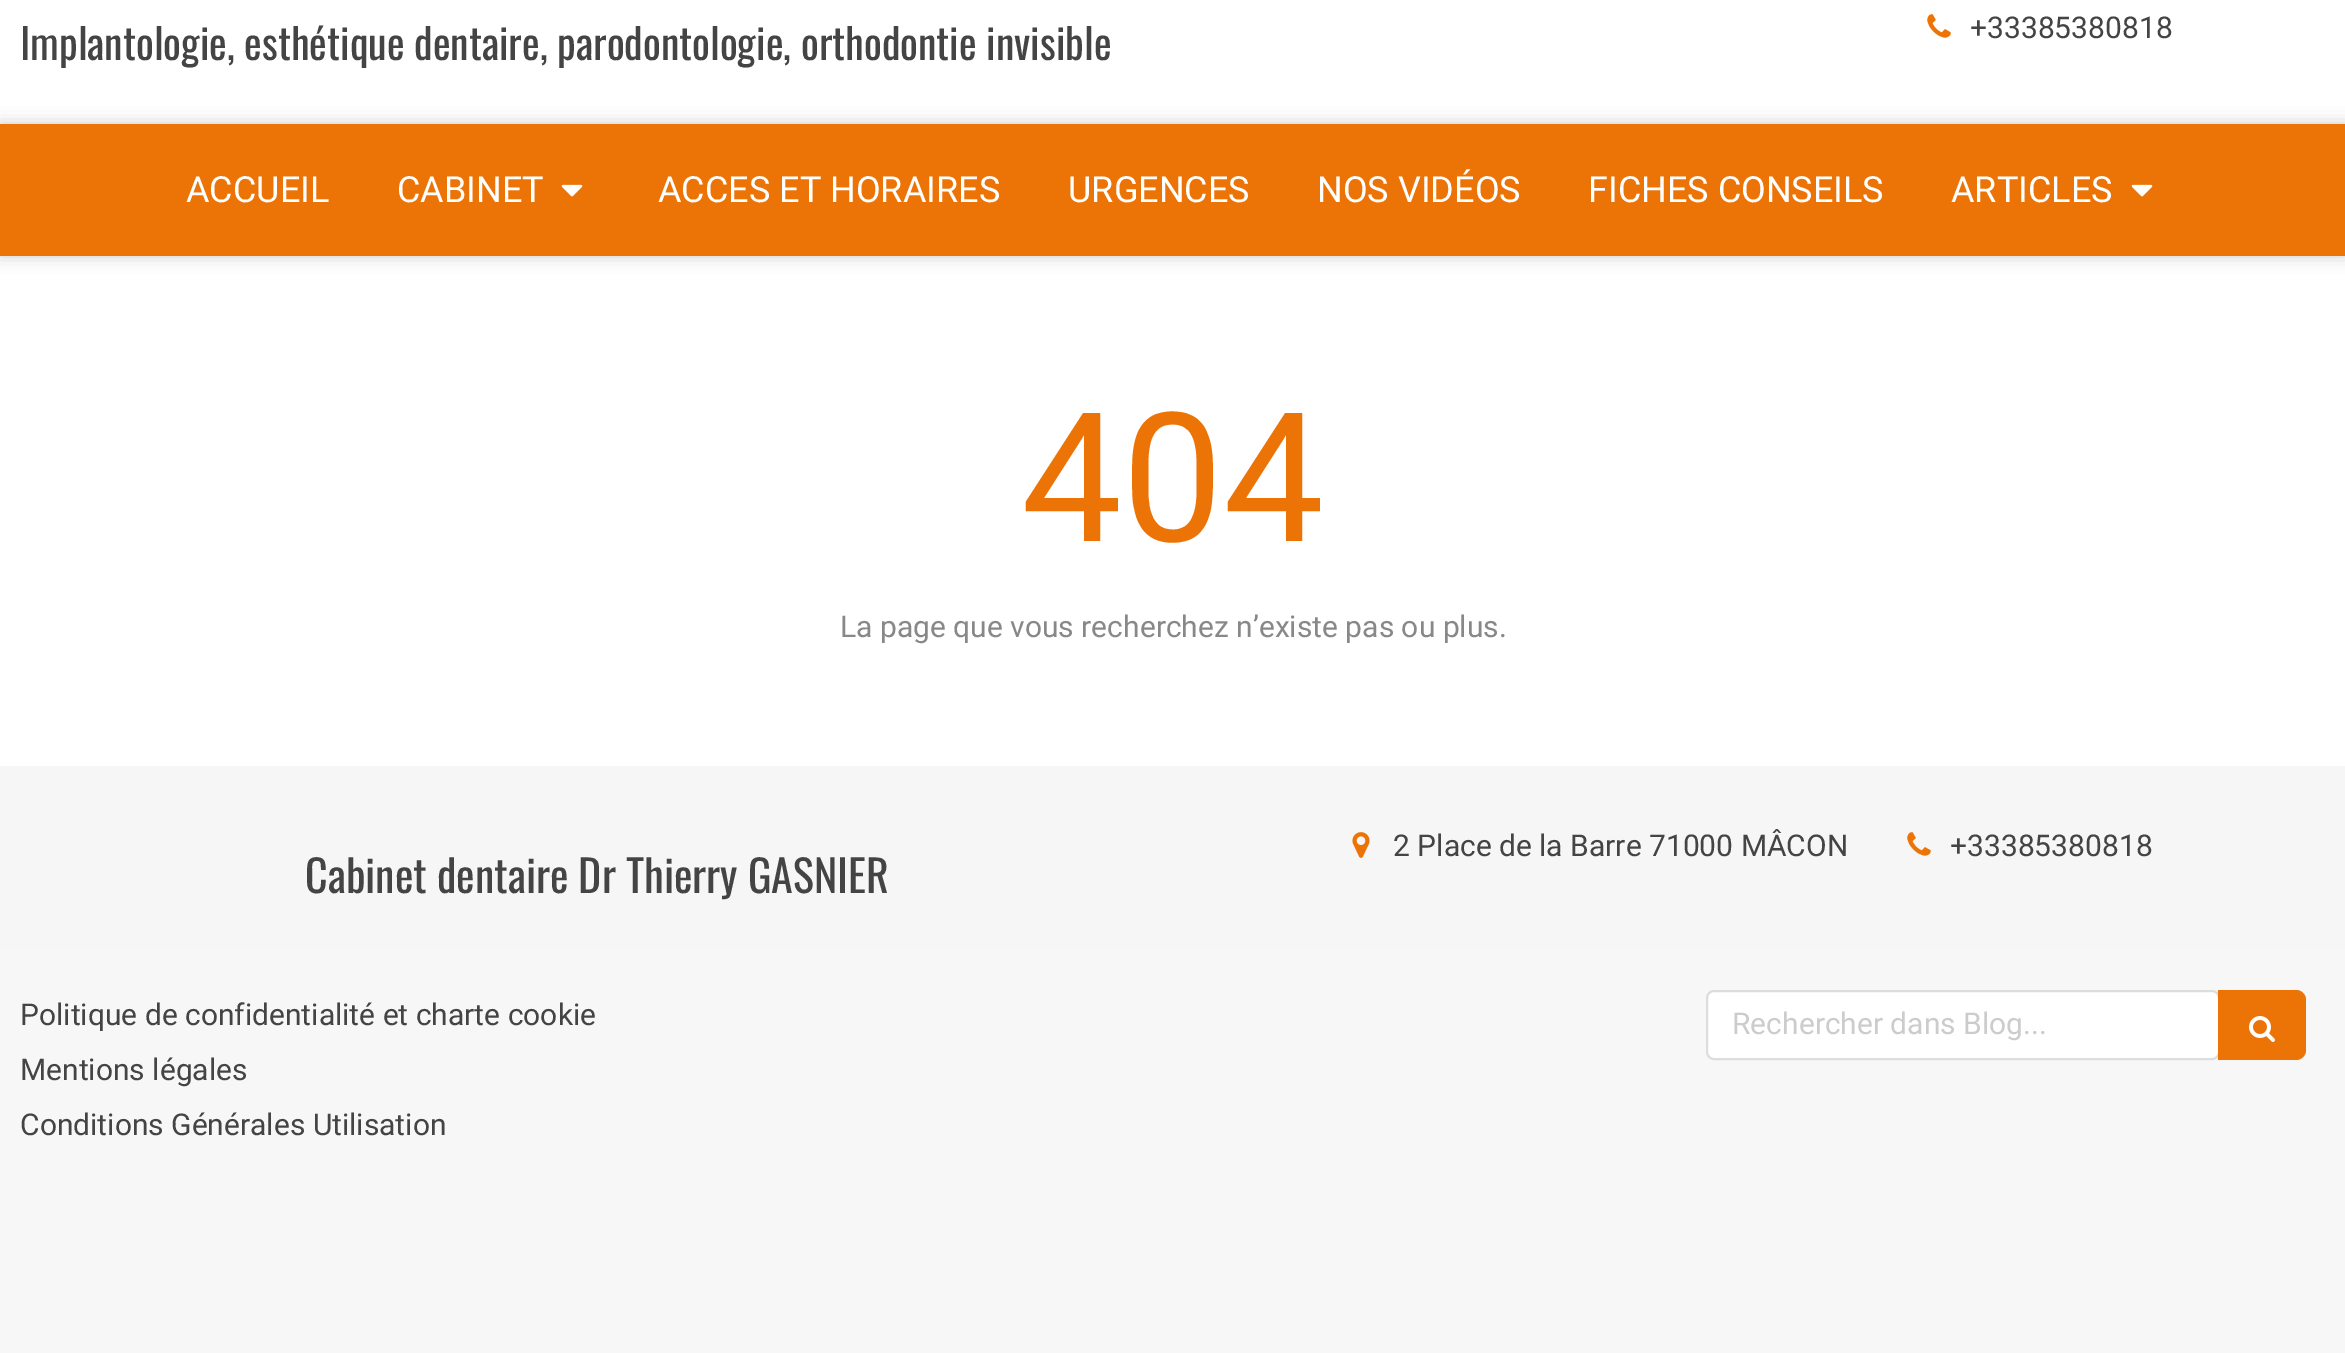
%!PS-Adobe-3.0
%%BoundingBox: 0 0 2345 1353
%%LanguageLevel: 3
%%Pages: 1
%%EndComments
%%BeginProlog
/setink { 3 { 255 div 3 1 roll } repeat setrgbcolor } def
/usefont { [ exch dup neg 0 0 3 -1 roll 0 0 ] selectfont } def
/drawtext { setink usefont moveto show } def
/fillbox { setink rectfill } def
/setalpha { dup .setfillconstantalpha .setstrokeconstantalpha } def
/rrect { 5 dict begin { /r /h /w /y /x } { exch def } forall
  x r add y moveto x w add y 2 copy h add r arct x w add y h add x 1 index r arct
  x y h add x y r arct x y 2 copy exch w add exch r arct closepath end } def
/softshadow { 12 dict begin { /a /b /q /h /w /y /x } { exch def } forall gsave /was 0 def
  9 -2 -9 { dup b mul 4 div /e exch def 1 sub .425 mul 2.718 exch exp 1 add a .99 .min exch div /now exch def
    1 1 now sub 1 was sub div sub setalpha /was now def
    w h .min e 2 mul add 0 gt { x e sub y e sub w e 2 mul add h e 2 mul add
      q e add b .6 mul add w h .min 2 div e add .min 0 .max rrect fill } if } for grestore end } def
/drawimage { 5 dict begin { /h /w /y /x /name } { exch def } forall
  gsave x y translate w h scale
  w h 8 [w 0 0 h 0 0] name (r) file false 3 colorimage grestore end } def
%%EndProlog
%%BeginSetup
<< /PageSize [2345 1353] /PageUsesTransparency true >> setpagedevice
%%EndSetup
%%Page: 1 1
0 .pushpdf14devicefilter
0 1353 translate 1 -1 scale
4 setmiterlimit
0 0 2345 1353 255 255 255 fillbox
(Implantologie, esthétique dentaire, parodontologie, orthodontie invisible) 20 60 /Oswald-Regular 42 68 68 68 drawtext
(assets/img1.rgb) 1927 14 24 24 drawimage
(+33385380818) 1970 38 /Roboto-Regular 30 68 68 68 drawtext
0 0 0 setink
0 124 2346 132 0 8 0.2 softshadow
0 124 2345 132 236 116 6 fillbox
(ACCUEIL) 186 202 /Roboto-Regular 36 255 255 255 drawtext
(CABINET) 397 202 /Roboto-Regular 36 255 255 255 drawtext
(assets/img2.rgb) 561 184 22 13 drawimage
(ACCES ET HORAIRES) 658 202 /Roboto-Regular 36 255 255 255 drawtext
(URGENCES) 1068 202 /Roboto-Regular 36 255 255 255 drawtext
(NOS VIDÉOS) 1317 202 /Roboto-Regular 36 255 255 255 drawtext
(FICHES CONSEILS) 1588 202 /Roboto-Regular 36 255 255 255 drawtext
(ARTICLES) 1951 202 /Roboto-Regular 36 255 255 255 drawtext
(assets/img2.rgb) 2131 184 22 13 drawimage
(404) 1021 541 /Roboto-Regular 180 236 116 6 drawtext
(La page que vous recherchez n’existe pas ou plus.) 840 637 /Roboto-Regular 30 136 136 136 drawtext
0 766 2345 184 246 246 246 fillbox
(assets/img3.rgb) 1352 832 18 26 drawimage
(2 Place de la Barre 71000 MÂCON) 1393 856 /Roboto-Regular 30 68 68 68 drawtext
(assets/img4.rgb) 1907 832 24 24 drawimage
(+33385380818) 1950 856 /Roboto-Regular 30 68 68 68 drawtext
(Cabinet dentaire Dr Thierry GASNIER) 305 893 /Oswald-Regular 44 68 68 68 drawtext
0 950 2345 403 247 247 247 fillbox
(Politique de confidentialité et charte cookie) 20 1025 /Roboto-Regular 30 68 68 68 drawtext
(Mentions légales) 20 1080 /Roboto-Regular 30 68 68 68 drawtext
(Conditions Générales Utilisation) 20 1135 /Roboto-Regular 30 68 68 68 drawtext
255 255 255 setink
1707 991 512 68 7 rrect gsave fill grestore
221 221 221 setink
2 setlinewidth
stroke
(Rechercher dans Blog...) 1732 1034 /Roboto-Regular 30 204 204 204 drawtext
236 116 6 setink
2218 990 moveto 2296 990 lineto 2301.5 990 2306 994.5 2306 1000 curveto 2306 1050 lineto 2306 1055.5 2301.5 1060 2296 1060 curveto 2218 1060 lineto closepath fill
(assets/img5.rgb) 2249 1016 26 26 drawimage
.poppdf14devicefilter showpage
%%EOF
